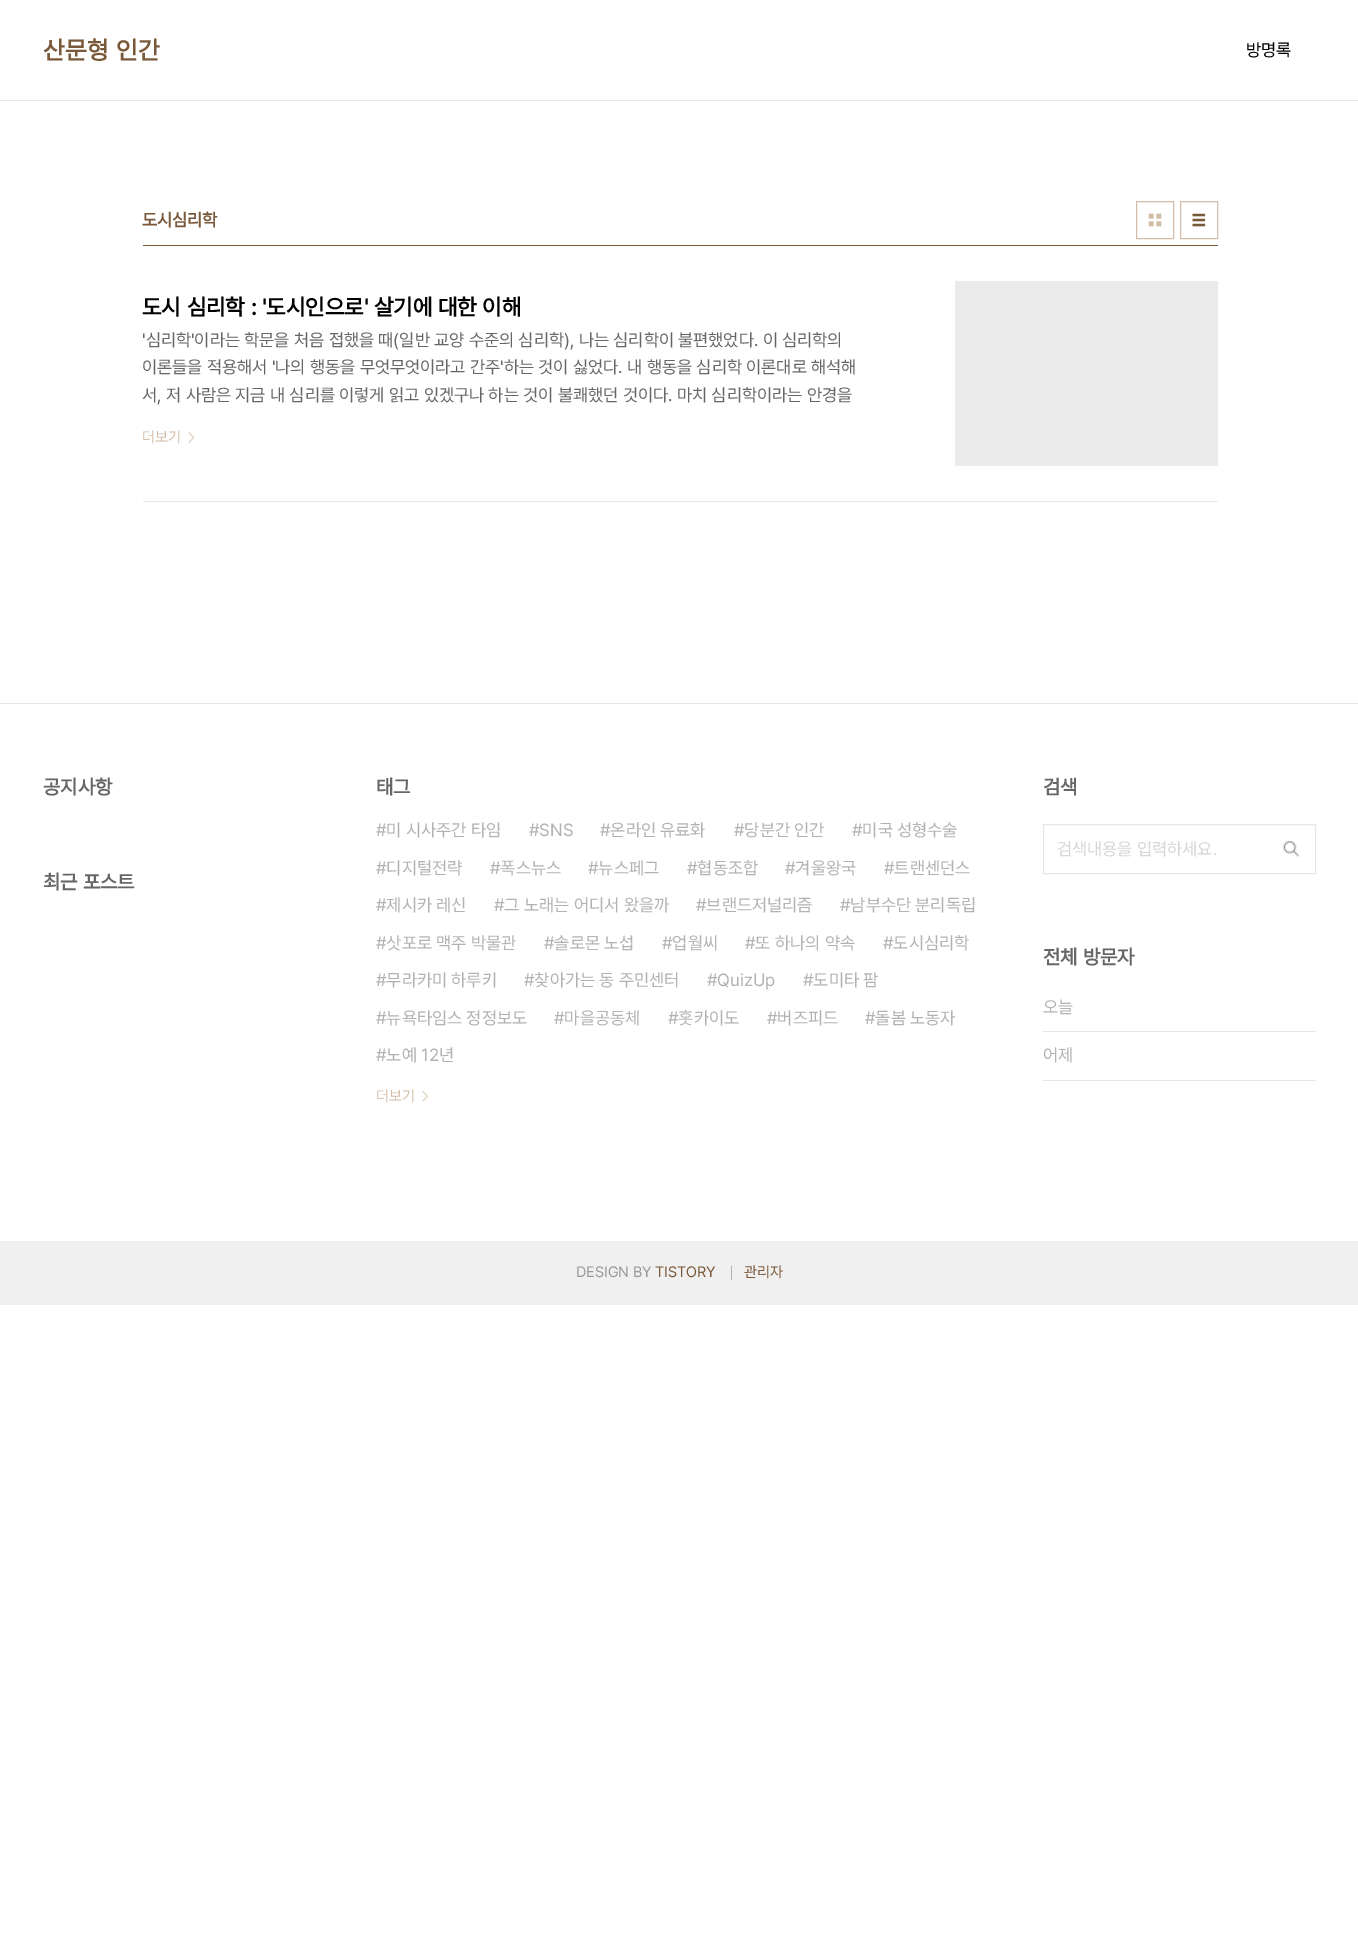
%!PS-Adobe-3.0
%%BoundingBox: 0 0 1358 1933
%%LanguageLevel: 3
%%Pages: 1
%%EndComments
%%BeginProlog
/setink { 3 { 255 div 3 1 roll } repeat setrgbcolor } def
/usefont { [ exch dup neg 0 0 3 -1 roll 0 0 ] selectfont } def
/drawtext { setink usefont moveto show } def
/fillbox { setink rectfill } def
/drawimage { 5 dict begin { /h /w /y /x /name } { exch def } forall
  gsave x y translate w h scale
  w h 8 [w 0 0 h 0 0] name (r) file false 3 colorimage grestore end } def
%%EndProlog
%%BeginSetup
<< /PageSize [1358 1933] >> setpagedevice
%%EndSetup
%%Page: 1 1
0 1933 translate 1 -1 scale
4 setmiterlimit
0 0 1358 1933 255 255 255 fillbox
0 100 1358 1 230 230 230 fillbox
/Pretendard-Bold 25 usefont
122 88 58 setink
43 59 moveto 0.5 0 (산문형 인간) ashow
(방명록) 1246 56 /Pretendard-Regular 17.5 0 0 0 drawtext
143 245 1075 1 122 88 58 fillbox
(도시심리학) 142 226 /Pretendard-Bold 17.5 122 88 58 drawtext
(assets/img1.rgb) 1148 213 14 14 drawimage
212 188 167 setink
1136.5 201.5 37 37 rectstroke
(assets/img2.rgb) 1192 213 14 14 drawimage
1180.5 201.5 37 37 rectstroke
143 501 1075 1 230 230 230 fillbox
(도시 심리학 : '도시인으로' 살기에 대한 이해) 142 315 /Pretendard-Bold 22.5 0 0 0 drawtext
955 281 263 185 235 235 235 fillbox
('심리학'이라는 학문을 처음 접했을 때\(일반 교양 수준의 심리학\), 나는 심리학이 불편했었다. 이 심리학의) 142 346 /Pretendard-Regular 17.5 102 102 102 drawtext
(이론들을 적용해서 '나의 행동을 무엇무엇이라고 간주'하는 것이 싫었다. 내 행동을 심리학 이론대로 해석해) 142 373 /Pretendard-Regular 17.5 102 102 102 drawtext
(서, 저 사람은 지금 내 심리를 이렇게 읽고 있겠구나 하는 것이 불쾌했던 것이다. 마치 심리학이라는 안경을) 142 401 /Pretendard-Regular 17.5 102 102 102 drawtext
(더보기) 142 442 /Pretendard-Regular 15 212 188 167 drawtext
(assets/img3.rgb) 188 432 6 11 drawimage
0 703 1358 1 230 230 230 fillbox
(공지사항) 43 794 /Pretendard-Bold 20 102 102 102 drawtext
(최근 포스트) 43 889 /Pretendard-Bold 20 102 102 102 drawtext
(태그) 376 794 /Pretendard-Bold 20 102 102 102 drawtext
(#미 시사주간 타임) 376 836 /Pretendard-Regular 17.5 178 178 178 drawtext
(#SNS) 529 836 /Pretendard-Regular 17.5 178 178 178 drawtext
(#온라인 유료화) 600 836 /Pretendard-Regular 17.5 178 178 178 drawtext
(#당분간 인간) 734 836 /Pretendard-Regular 17.5 178 178 178 drawtext
(#미국 성형수술) 852 836 /Pretendard-Regular 17.5 178 178 178 drawtext
(#디지털전략) 376 874 /Pretendard-Regular 17.5 178 178 178 drawtext
(#폭스뉴스) 490 874 /Pretendard-Regular 17.5 178 178 178 drawtext
(#뉴스페그) 588 874 /Pretendard-Regular 17.5 178 178 178 drawtext
(#협동조합) 687 874 /Pretendard-Regular 17.5 178 178 178 drawtext
(#겨울왕국) 785 874 /Pretendard-Regular 17.5 178 178 178 drawtext
(#트랜센던스) 884 874 /Pretendard-Regular 17.5 178 178 178 drawtext
(#제시카 레신) 376 911 /Pretendard-Regular 17.5 178 178 178 drawtext
(#그 노래는 어디서 왔을까) 494 911 /Pretendard-Regular 17.5 178 178 178 drawtext
(#브랜드저널리즘) 696 911 /Pretendard-Regular 17.5 178 178 178 drawtext
(#남부수단 분리독립) 840 911 /Pretendard-Regular 17.5 178 178 178 drawtext
(#삿포로 맥주 박물관) 376 949 /Pretendard-Regular 17.5 178 178 178 drawtext
(#솔로몬 노섭) 544 949 /Pretendard-Regular 17.5 178 178 178 drawtext
(#업월씨) 662 949 /Pretendard-Regular 17.5 178 178 178 drawtext
(#또 하나의 약속) 745 949 /Pretendard-Regular 17.5 178 178 178 drawtext
(#도시심리학) 883 949 /Pretendard-Regular 17.5 178 178 178 drawtext
(#무라카미 하루키) 376 986 /Pretendard-Regular 17.5 178 178 178 drawtext
(#찾아가는 동 주민센터) 524 986 /Pretendard-Regular 17.5 178 178 178 drawtext
(#QuizUp) 707 986 /Pretendard-Regular 17.5 178 178 178 drawtext
(#도미타 팜) 803 986 /Pretendard-Regular 17.5 178 178 178 drawtext
(#뉴욕타임스 정정보도) 376 1024 /Pretendard-Regular 17.5 178 178 178 drawtext
(#마을공동체) 554 1024 /Pretendard-Regular 17.5 178 178 178 drawtext
(#홋카이도) 668 1024 /Pretendard-Regular 17.5 178 178 178 drawtext
(#버즈피드) 767 1024 /Pretendard-Regular 17.5 178 178 178 drawtext
(#돌봄 노동자) 865 1024 /Pretendard-Regular 17.5 178 178 178 drawtext
(#노예 12년) 376 1061 /Pretendard-Regular 17.5 178 178 178 drawtext
(더보기) 376 1101 /Pretendard-Regular 15 212 188 167 drawtext
(assets/img4.rgb) 422 1091 6 11 drawimage
(검색) 1043 794 /Pretendard-Bold 20 102 102 102 drawtext
230 230 230 setink
1043.5 824.5 272 49 rectstroke
(검색내용을 입력하세요.) 1057 855 /Pretendard-Regular 17.5 214 214 214 drawtext
(assets/img5.rgb) 1283 841 16 16 drawimage
(전체 방문자) 1043 964 /Pretendard-Bold 20 102 102 102 drawtext
1043 1031 273 1 230 230 230 fillbox
(오늘) 1043 1013 /Pretendard-Regular 17.5 178 178 178 drawtext
1043 1080 273 1 230 230 230 fillbox
(어제) 1043 1061 /Pretendard-Regular 17.5 178 178 178 drawtext
0 1241 1358 64 240 240 240 fillbox
(DESIGN BY) 576 1277 /Pretendard-Regular 15 153 153 153 drawtext
(TISTORY) 655 1277 /Pretendard-Regular 15 122 88 58 drawtext
731 1266 1 14 178 178 178 fillbox
(관리자) 744 1277 /Pretendard-Regular 15 122 88 58 drawtext
showpage
%%EOF
